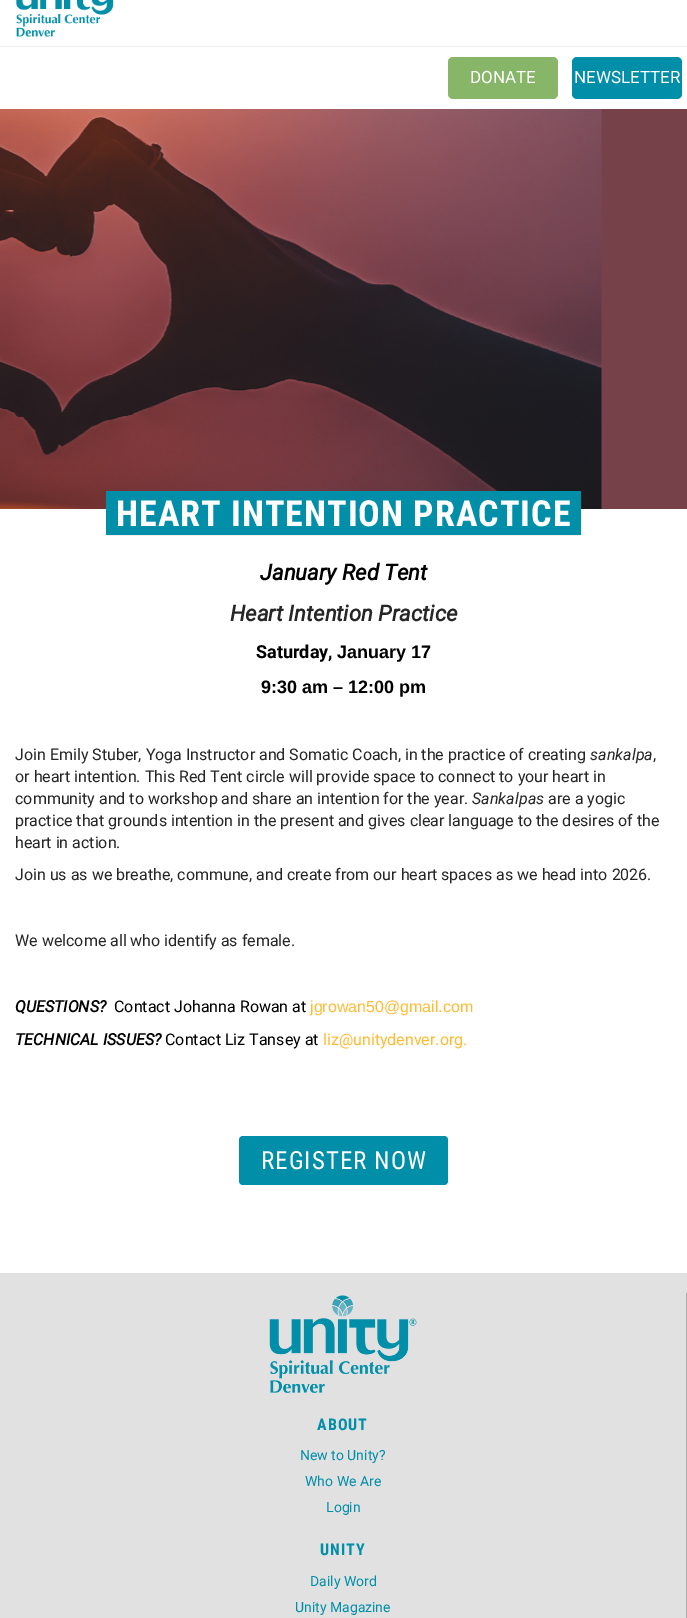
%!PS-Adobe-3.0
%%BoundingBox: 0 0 687 1618
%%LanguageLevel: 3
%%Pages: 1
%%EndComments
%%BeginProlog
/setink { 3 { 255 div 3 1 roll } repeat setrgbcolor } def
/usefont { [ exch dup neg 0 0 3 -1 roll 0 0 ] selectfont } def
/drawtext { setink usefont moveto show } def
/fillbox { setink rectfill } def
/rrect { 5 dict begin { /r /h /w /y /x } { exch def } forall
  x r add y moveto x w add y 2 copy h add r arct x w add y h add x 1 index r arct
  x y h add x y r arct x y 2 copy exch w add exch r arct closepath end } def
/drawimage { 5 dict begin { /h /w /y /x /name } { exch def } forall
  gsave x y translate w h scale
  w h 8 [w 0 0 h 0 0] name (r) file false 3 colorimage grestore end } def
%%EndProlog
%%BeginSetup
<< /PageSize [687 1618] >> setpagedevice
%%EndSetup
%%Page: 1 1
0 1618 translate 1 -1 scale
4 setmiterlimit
0 0 687 1618 255 255 255 fillbox
0 46 687 1 239 239 239 fillbox
(assets/img1.rgb) 15 0 99 37 drawimage
136 182 104 setink
448 57 110 42 5 rrect fill
(DONATE) 470 83 /Roboto-Regular 17 255 255 255 drawtext
0 142 169 setink
572 57 110 42 5 rrect fill
(NEWSLETTER) 574 83 /Roboto-Regular 17 255 255 255 drawtext
(assets/img2.rgb) 0 109 687 400 drawimage
106 491 475 44 0 142 169 fillbox
106 535 475 1 238 238 238 fillbox
/RobotoCondensed-Bold 36 usefont
255 255 255 setink
116 526 moveto 1 0 (HEART INTENTION PRACTICE) ashow
(January Red Tent) 260 580 /Roboto-BoldItalic 22 0 0 0 drawtext
(Heart Intention Practice) 230 621 /Roboto-BoldItalic 22 38 38 38 drawtext
(Saturday,) 256 658 /Roboto-Bold 18 0 0 0 drawtext
(January 17) 337 658 /LiberationSans-Bold 18 0 0 0 drawtext
(9:30 am – 12:00 pm) 261 693 /LiberationSans-Bold 18 0 0 0 drawtext
(Join Emily Stuber, Yoga Instructor and Somatic Coach, in the practice of creating) 15 760 /Roboto-Regular 16 38 38 38 drawtext
(sankalpa) 590 760 /Roboto-Italic 16 38 38 38 drawtext
(,) 653 760 /Roboto-Regular 16 38 38 38 drawtext
(or heart intention. This Red Tent circle will provide space to connect to your heart in) 15 782 /Roboto-Regular 16 38 38 38 drawtext
(community and to workshop and share an intention for the year.) 15 804 /Roboto-Regular 16 38 38 38 drawtext
(Sankalpas) 472 804 /Roboto-Italic 16 38 38 38 drawtext
(are a yogic) 548 804 /Roboto-Regular 16 38 38 38 drawtext
(practice that grounds intention in the present and gives clear language to the desires of the) 15 826 /Roboto-Regular 16 38 38 38 drawtext
(heart in action.) 15 848 /Roboto-Regular 16 38 38 38 drawtext
(Join us as we breathe, commune, and create from our heart spaces as we head into 2026.) 15 880 /Roboto-Regular 16 38 38 38 drawtext
(We welcome all who identify as female.) 15 946 /Roboto-Regular 16 38 38 38 drawtext
(QUESTIONS?) 15 1012 /Roboto-BoldItalic 16 0 0 0 drawtext
(Contact Johanna Rowan at) 114 1012 /Roboto-Regular 16 0 0 0 drawtext
(jgrowan50@gmail.com) 310 1012 /LiberationSans-Regular 16 255 187 51 drawtext
(TECHNICAL ISSUES?) 15 1045 /Roboto-BoldItalic 16 0 0 0 drawtext
(Contact Liz Tansey at) 165 1045 /Roboto-Regular 16 0 0 0 drawtext
(liz@unitydenver.org.) 323 1045 /Roboto-Regular 16 255 187 51 drawtext
0 142 169 setink
239 1136 209 49 4 rrect fill
/RobotoCondensed-Regular 25 usefont
255 255 255 setink
261 1169 moveto 1 0 (REGISTER NOW) ashow
0 1273 687 345 225 225 225 fillbox
686 1293 1 325 172 172 172 fillbox
(assets/img3.rgb) 269 1295 148 98 drawimage
/RobotoCondensed-Bold 16 usefont
0 142 169 setink
317 1430 moveto 1 0 (ABOUT) ashow
(New to Unity?) 300 1460 /Roboto-Regular 14 0 142 169 drawtext
(Who We Are) 305 1486 /Roboto-Regular 14 0 142 169 drawtext
(Login) 326 1512 /Roboto-Regular 14 0 142 169 drawtext
/RobotoCondensed-Bold 16 usefont
320 1555 moveto 1 0 (UNITY) ashow
(Daily Word) 310 1586 /Roboto-Regular 14 0 142 169 drawtext
(Unity Magazine) 295 1612 /Roboto-Regular 14 0 142 169 drawtext
showpage
%%EOF
